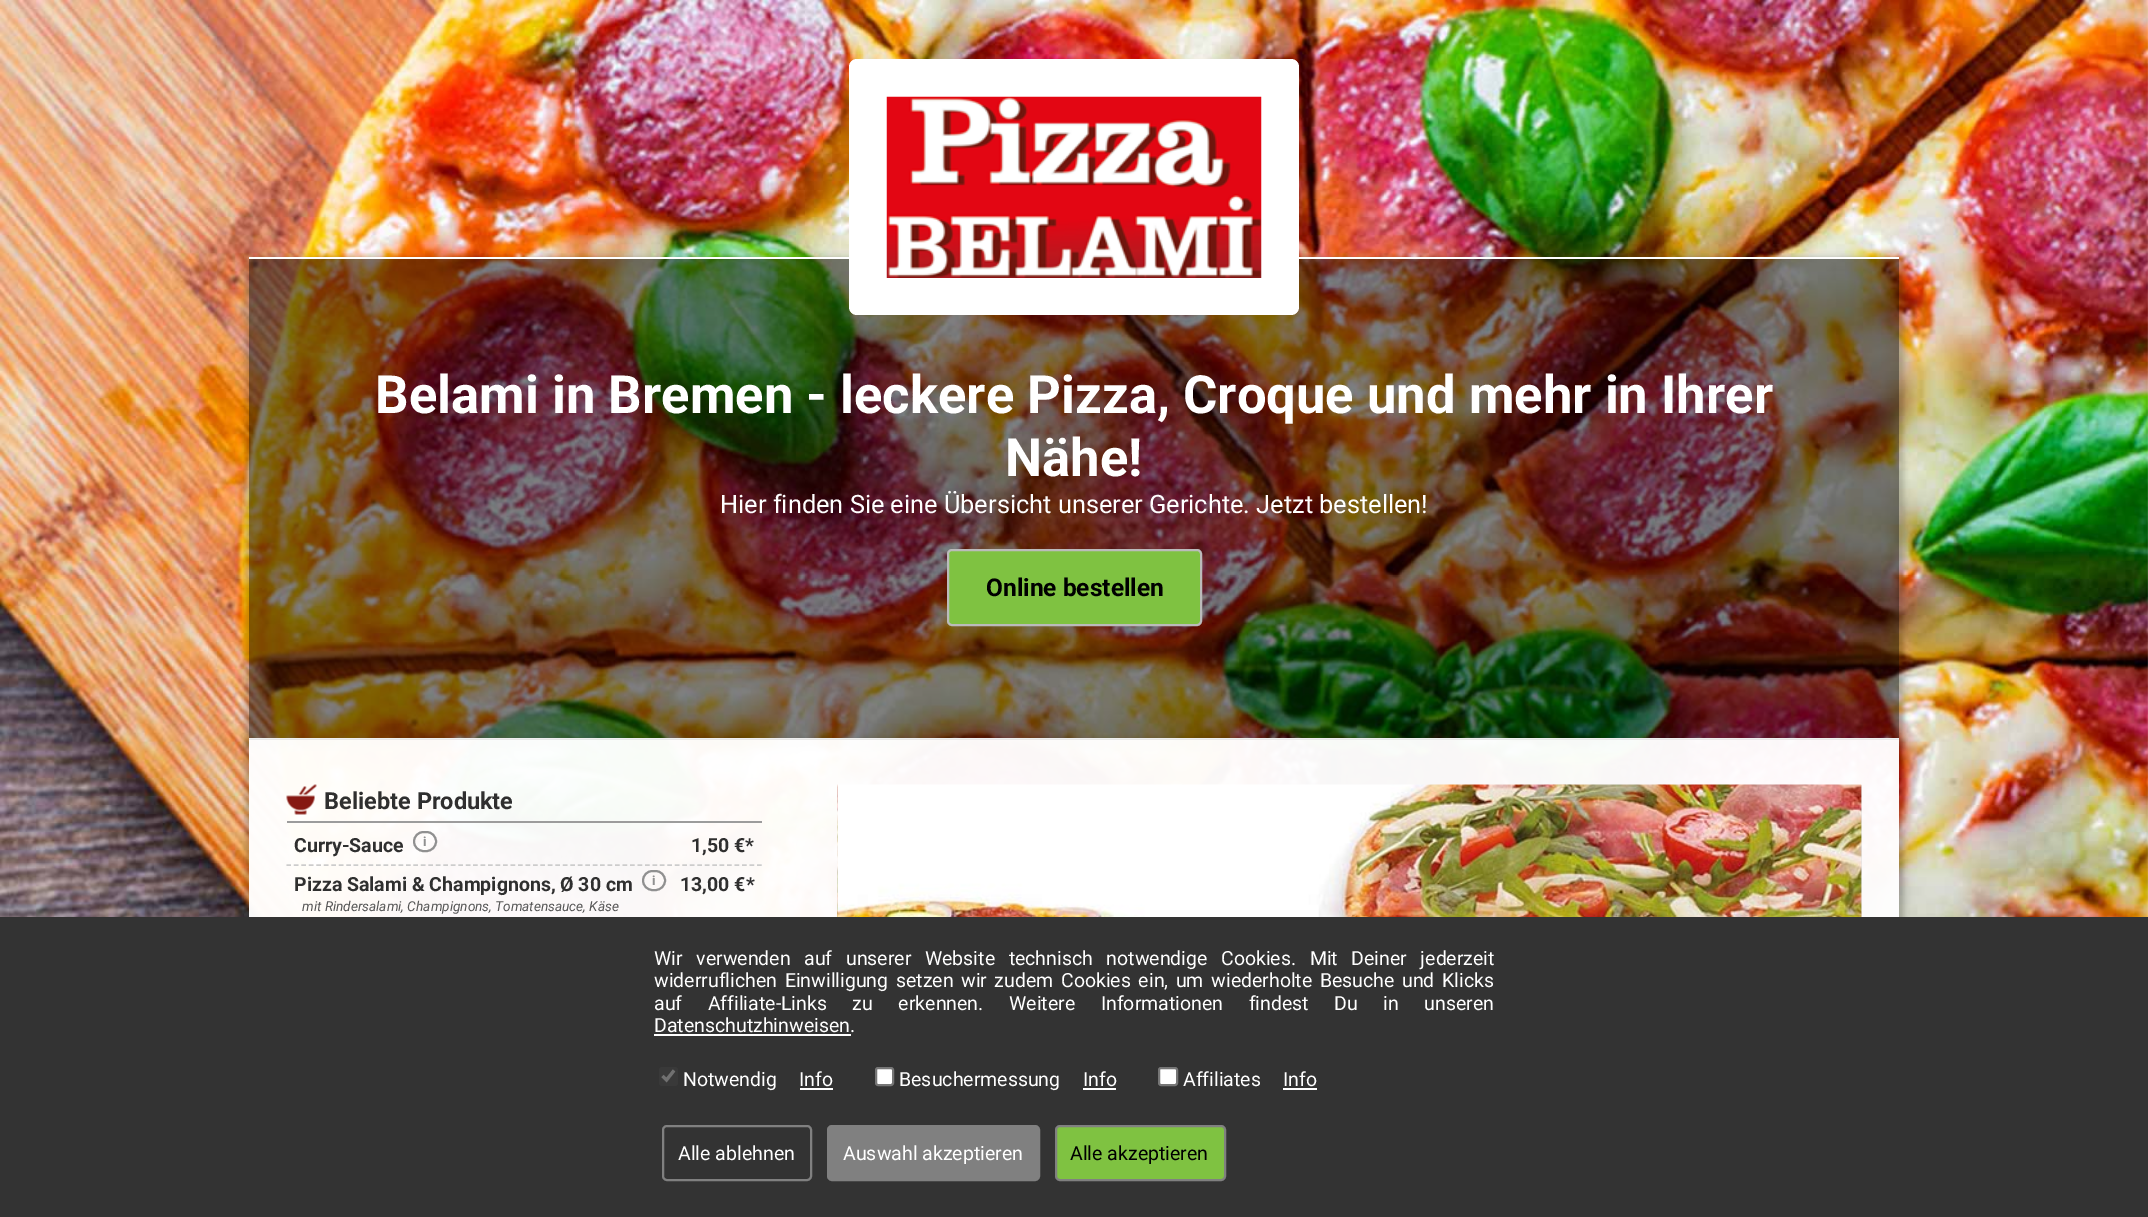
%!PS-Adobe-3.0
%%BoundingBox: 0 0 2148 1217
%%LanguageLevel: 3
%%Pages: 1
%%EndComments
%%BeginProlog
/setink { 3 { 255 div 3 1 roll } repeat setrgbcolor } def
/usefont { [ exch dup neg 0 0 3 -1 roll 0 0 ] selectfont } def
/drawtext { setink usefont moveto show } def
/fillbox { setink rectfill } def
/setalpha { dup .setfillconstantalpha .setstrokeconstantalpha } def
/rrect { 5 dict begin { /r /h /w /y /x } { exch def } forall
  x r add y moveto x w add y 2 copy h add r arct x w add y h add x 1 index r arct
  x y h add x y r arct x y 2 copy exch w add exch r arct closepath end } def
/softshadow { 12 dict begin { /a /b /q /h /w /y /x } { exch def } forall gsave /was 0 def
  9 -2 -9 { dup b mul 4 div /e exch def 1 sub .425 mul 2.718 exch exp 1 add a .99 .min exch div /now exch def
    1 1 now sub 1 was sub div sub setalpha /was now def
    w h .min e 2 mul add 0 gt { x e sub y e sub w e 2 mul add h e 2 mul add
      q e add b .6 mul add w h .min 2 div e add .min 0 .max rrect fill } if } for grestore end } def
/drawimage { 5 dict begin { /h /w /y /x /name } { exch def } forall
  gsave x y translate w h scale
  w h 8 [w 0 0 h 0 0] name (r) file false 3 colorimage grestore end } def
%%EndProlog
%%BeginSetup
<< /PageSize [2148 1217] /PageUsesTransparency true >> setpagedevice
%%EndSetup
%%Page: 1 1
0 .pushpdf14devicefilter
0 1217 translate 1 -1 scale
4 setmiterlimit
0 0 2148 1217 255 255 255 fillbox
(assets/img1.rgb) 0 0 2148 917 drawimage
gsave
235 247 moveto 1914 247 lineto 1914 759 lineto 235 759 lineto closepath 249 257 moveto 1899 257 lineto 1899 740 lineto 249 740 lineto closepath eoclip newpath
0 0 0 setink
245 257 1659 492 0 3 0.2 softshadow
grestore
0.5 setalpha
249 259 1650 479 0 0 0 fillbox
1 setalpha
249 257 1650 2 255 255 255 fillbox
849 59 450 256 8 rrect fill
(assets/img2.rgb) 886 96 376 182 drawimage
249 738 1650 2 255 255 255 fillbox
(Belami in Bremen - leckere Pizza, Croque und mehr in Ihrer) 375 413 /Roboto-Bold 52.65 255 255 255 drawtext
(Nähe!) 1005 476 /Roboto-Bold 52.65 255 255 255 drawtext
(Hier finden Sie eine Übersicht unserer Gerichte. Jetzt bestellen!) 720 513 /Roboto-Regular 25.35 255 255 255 drawtext
127 194 65 setink
948 550 253 75 4 rrect gsave fill grestore
187 187 187 setink
2 setlinewidth
stroke
(Online bestellen) 986 596 /Roboto-Bold 24.5 0 0 0 drawtext
gsave
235 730 moveto 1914 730 lineto 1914 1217 lineto 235 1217 lineto closepath 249 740 moveto 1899 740 lineto 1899 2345 lineto 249 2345 lineto closepath eoclip newpath
245 740 1659 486 0 3 0.2 softshadow
grestore
0.97 setalpha
249 740 1650 177 255 255 255 fillbox
1 setalpha
287 821 475 2 156 156 156 fillbox
(assets/img3.rgb) 286 784 31 31 drawimage
(Beliebte Produkte) 324 809 /Roboto-Bold 23.5 47 47 47 drawtext
204 204 204 setink
1.5 setlinewidth
[4.5 2.97] 0 setdash
286.5 865 moveto 762 865 lineto stroke
(Curry-Sauce) 294 852 /Roboto-Bold 19.5 47 47 47 drawtext
144 144 144 setink
2 setlinewidth
[] 0 setdash
414 832 22 19 9.5 rrect stroke
(i) 423 846 /Roboto-Bold 13 144 144 144 drawtext
(1,50 €*) 691 852 /Roboto-Bold 19.5 47 47 47 drawtext
(Pizza Salami & Champignons, Ø 30 cm) 294 891 /Roboto-Bold 19.5 47 47 47 drawtext
144 144 144 setink
643 871 22 19 9.5 rrect stroke
(i) 652 885 /Roboto-Bold 13 144 144 144 drawtext
(13,00 €*) 680 891 /Roboto-Bold 19.5 47 47 47 drawtext
(mit Rindersalami, Champignons, Tomatensauce, Käse) 302 911 /Roboto-Italic 13.65 87 87 87 drawtext
1861 785 1 132 221 221 221 fillbox
(assets/img4.rgb) 837 784 1025 133 drawimage
0 917 2148 300 51 51 51 fillbox
/Roboto-Regular 19.5 usefont
255 255 255 setink
654 965 moveto 8.75 0 32 (Wir verwenden auf unserer Website technisch notwendige Cookies. Mit Deiner jederzeit) widthshow
654 987 moveto 2.75 0 32 (widerruflichen Einwilligung setzen wir zudem Cookies ein, um wiederholte Besuche und Klicks) widthshow
654 1010 moveto 20.75 0 32 (auf Affiliate-Links zu erkennen. Weitere Informationen findest Du in unseren) widthshow
(Datenschutzhinweisen.) 654 1032 /Roboto-Regular 19.5 255 255 255 drawtext
654 1034 197 2 255 255 255 fillbox
57 57 57 setink
659 1067 19 19 3 rrect fill
112 112 112 setink
3.1 setlinewidth
662.5 1076 moveto 666.5 1080 lineto 674 1070.5 lineto stroke
(Notwendig) 683 1086 /Roboto-Regular 19.5 255 255 255 drawtext
(Info) 799 1086 /Roboto-Regular 19.5 255 255 255 drawtext
800 1088 33 2 255 255 255 fillbox
876 1068 17 17 2 rrect gsave fill grestore
118 118 118 setink
2 setlinewidth
stroke
(Besuchermessung) 899 1086 /Roboto-Regular 19.5 255 255 255 drawtext
(Info) 1083 1086 /Roboto-Regular 19.5 255 255 255 drawtext
1083 1088 33 2 255 255 255 fillbox
1159 1068 18 17 2 rrect gsave fill grestore
118 118 118 setink
stroke
(Affiliates) 1183 1086 /Roboto-Regular 19.5 255 255 255 drawtext
(Info) 1283 1086 /Roboto-Regular 19.5 255 255 255 drawtext
1283 1088 34 2 255 255 255 fillbox
128 128 128 setink
663 1126 148 54 4 rrect stroke
(Alle ablehnen) 678 1160 /Roboto-Regular 19.5 255 255 255 drawtext
128 128 128 setink
828 1126 211 54 4 rrect gsave fill grestore
stroke
(Auswahl akzeptieren) 843 1160 /Roboto-Regular 19.5 255 255 255 drawtext
127 194 65 setink
1056 1126 169 54 4 rrect gsave fill grestore
128 128 128 setink
stroke
(Alle akzeptieren) 1070 1160 /Roboto-Regular 19.5 0 0 0 drawtext
.poppdf14devicefilter showpage
%%EOF
